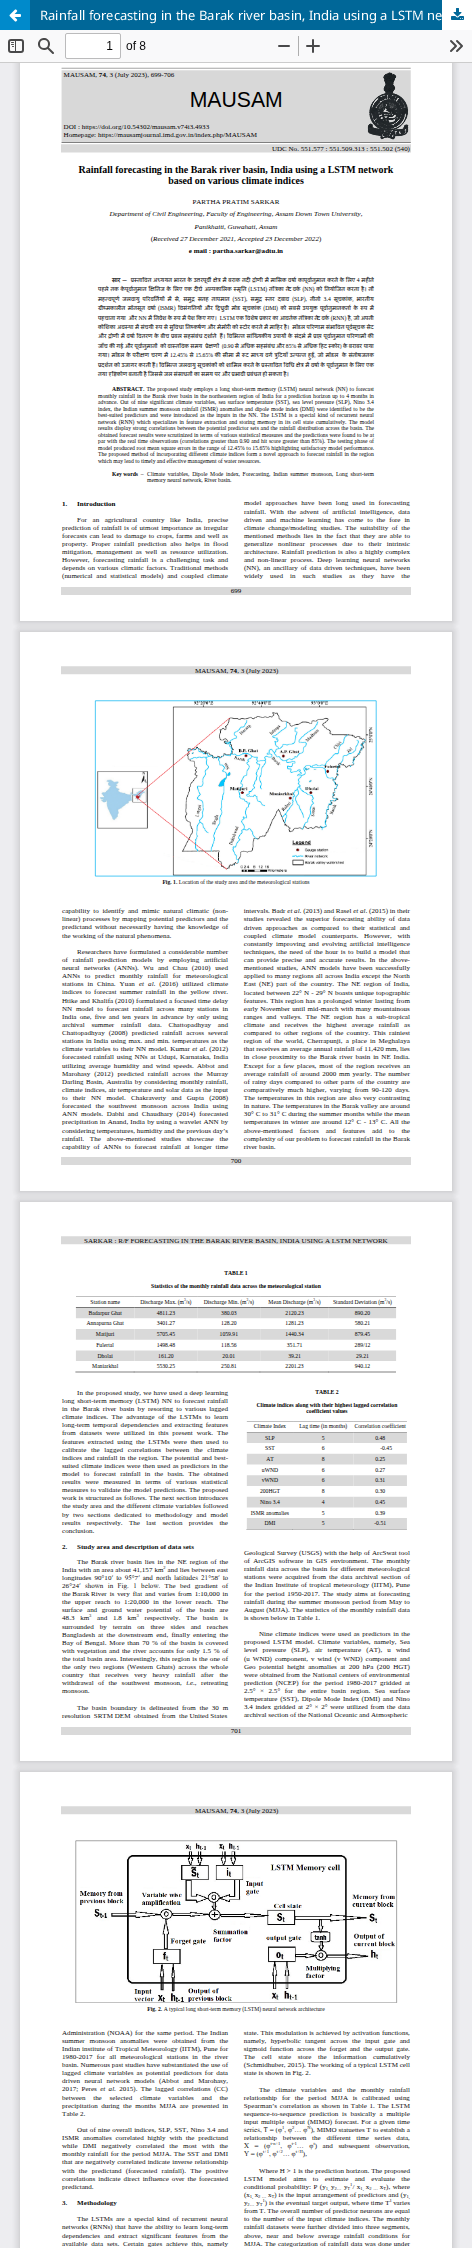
%!PS-Adobe-3.0
%%BoundingBox: 0 0 472 2248
%%LanguageLevel: 3
%%Pages: 1
%%EndComments
%%BeginProlog
/setink { 3 { 255 div 3 1 roll } repeat setrgbcolor } def
/usefont { [ exch dup neg 0 0 3 -1 roll 0 0 ] selectfont } def
/drawtext { setink usefont moveto show } def
/fillbox { setink rectfill } def
/drawimage { 5 dict begin { /h /w /y /x /name } { exch def } forall
  gsave x y translate w h scale
  w h 8 [w 0 0 h 0 0] name (r) file false 3 colorimage grestore end } def
%%EndProlog
%%BeginSetup
<< /PageSize [472 2248] >> setpagedevice
%%EndSetup
%%Page: 1 1
0 2248 translate 1 -1 scale
4 setmiterlimit
0 0 472 2248 255 255 255 fillbox
30 0 412 30 0 103 152 fillbox
0 0 30 30 0 138 203 fillbox
(assets/img1.rgb) 9 9 12 13 drawimage
(Rainfall forecasting in the Barak river basin, India using a LSTM ne) 40 20 /NotoSans-Regular 13 255 255 255 drawtext
(assets/img2.rgb) 451 8 13 12 drawimage
(assets/img3.rgb) 0 30 472 2218 drawimage
showpage
%%EOF
